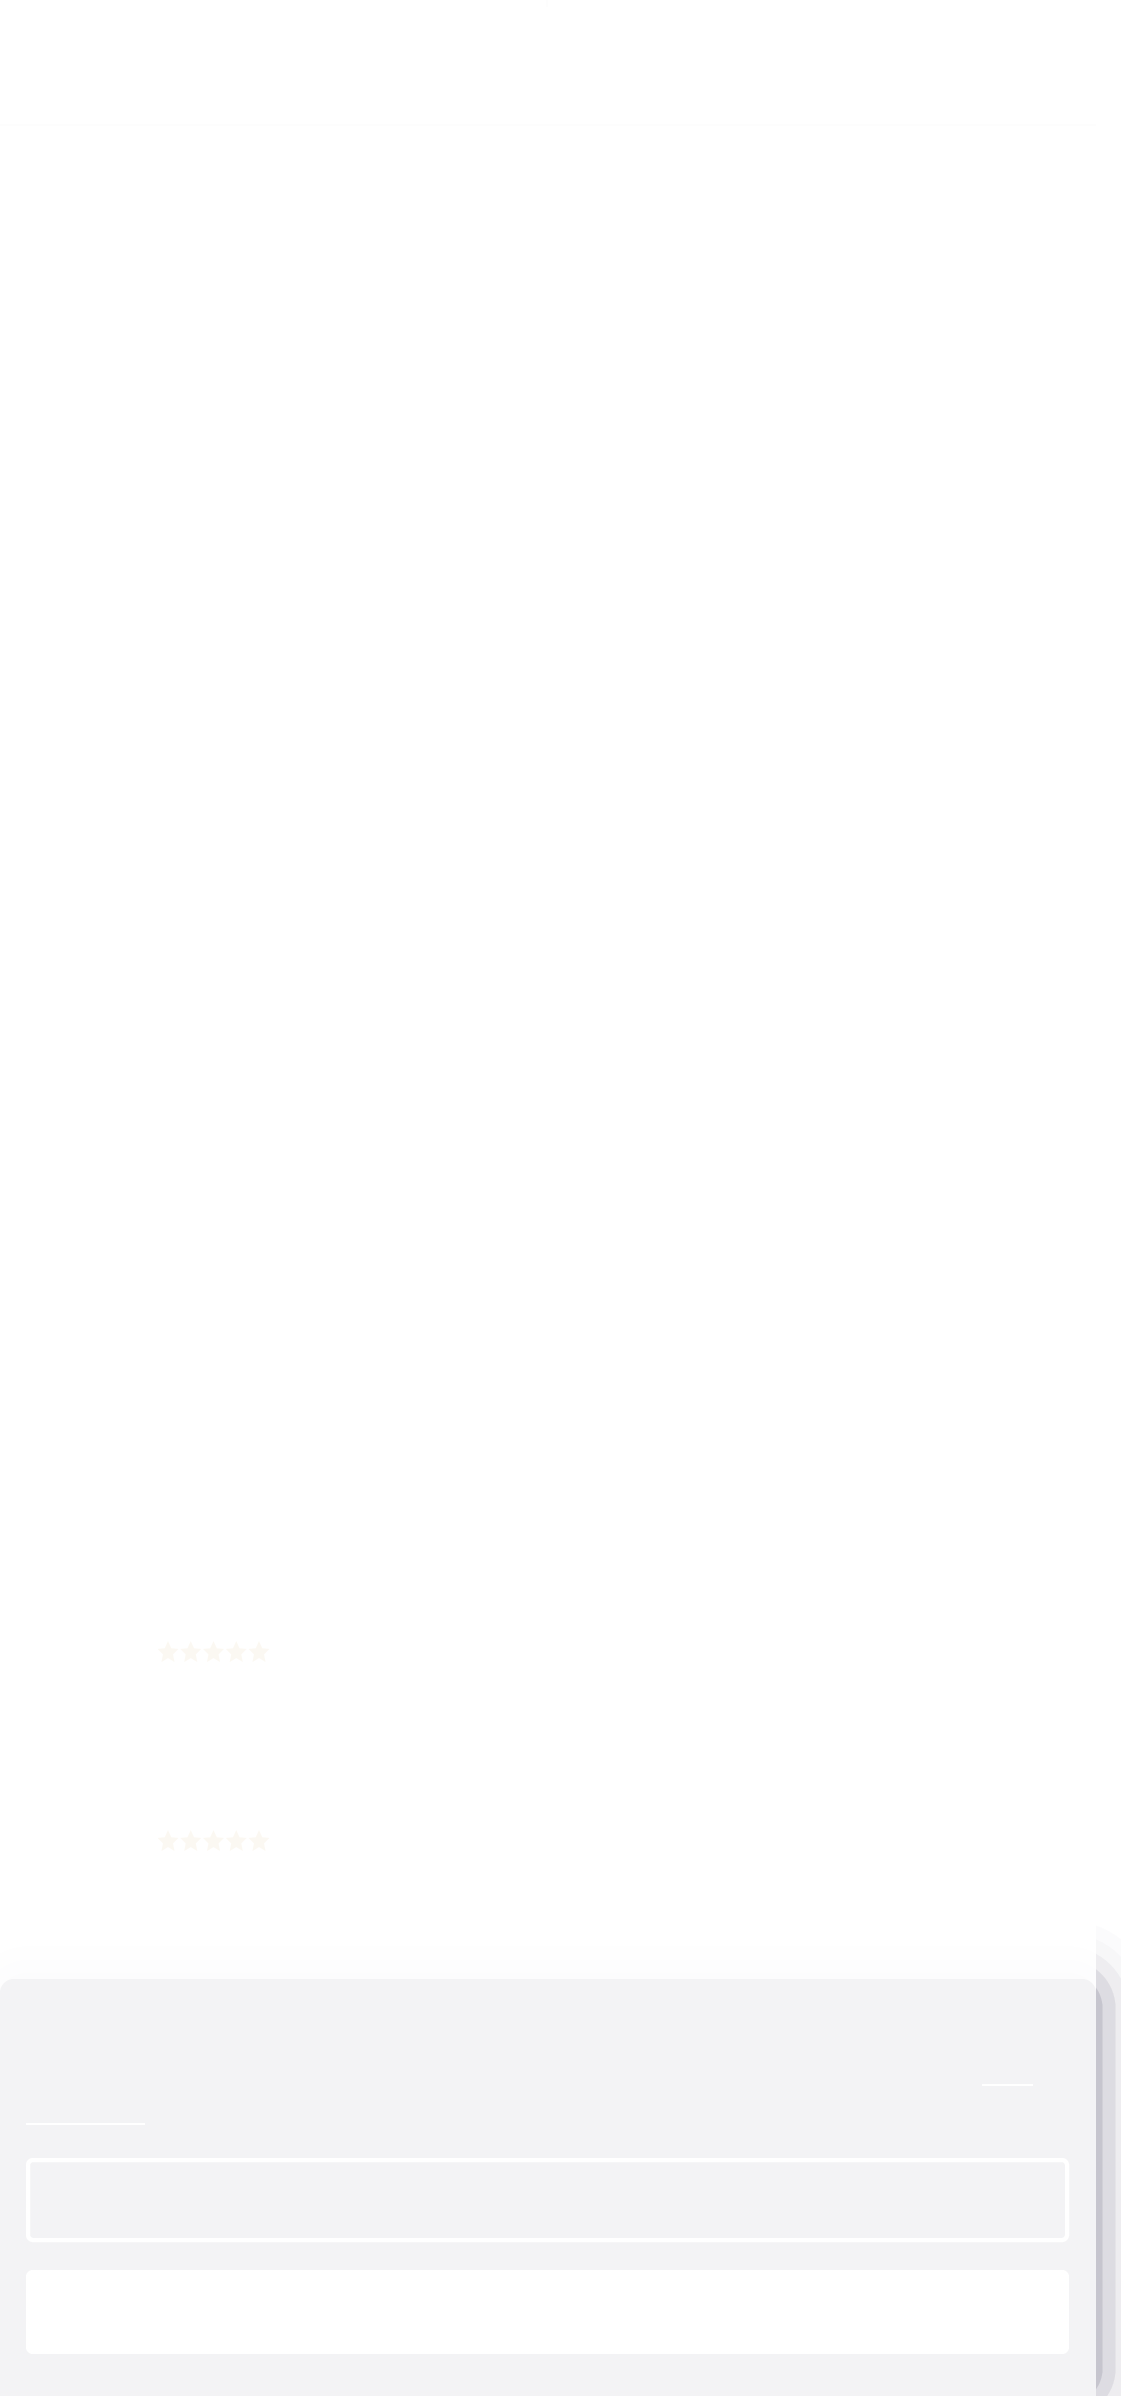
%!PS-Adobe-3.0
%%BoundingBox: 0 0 1121 2396
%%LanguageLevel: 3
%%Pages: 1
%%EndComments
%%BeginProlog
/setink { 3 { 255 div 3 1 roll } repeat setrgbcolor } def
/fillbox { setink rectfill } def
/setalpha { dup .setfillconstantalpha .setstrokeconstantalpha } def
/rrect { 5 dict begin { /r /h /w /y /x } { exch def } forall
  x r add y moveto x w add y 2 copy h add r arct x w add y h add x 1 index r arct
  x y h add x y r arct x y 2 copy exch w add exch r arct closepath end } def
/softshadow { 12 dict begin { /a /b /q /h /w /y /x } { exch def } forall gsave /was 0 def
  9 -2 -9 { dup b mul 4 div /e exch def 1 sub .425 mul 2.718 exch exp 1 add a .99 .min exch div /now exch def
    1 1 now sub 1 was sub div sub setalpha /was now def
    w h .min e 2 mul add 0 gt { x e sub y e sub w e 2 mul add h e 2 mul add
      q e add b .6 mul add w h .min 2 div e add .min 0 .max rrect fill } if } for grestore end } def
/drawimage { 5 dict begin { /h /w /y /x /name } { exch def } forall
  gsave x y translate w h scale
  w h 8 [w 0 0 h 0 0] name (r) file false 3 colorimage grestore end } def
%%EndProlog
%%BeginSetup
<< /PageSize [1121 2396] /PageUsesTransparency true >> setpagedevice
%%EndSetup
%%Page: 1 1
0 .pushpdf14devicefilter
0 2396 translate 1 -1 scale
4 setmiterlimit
0 0 1121 2396 255 255 255 fillbox
546 0 2 7 218 218 218 fillbox
0 124 1096 2 218 218 218 fillbox
(assets/img1.rgb) 158 1641 21 21 drawimage
(assets/img2.rgb) 180 1641 21 21 drawimage
(assets/img3.rgb) 203 1641 21 21 drawimage
(assets/img4.rgb) 226 1641 21 21 drawimage
(assets/img5.rgb) 248 1641 22 21 drawimage
(assets/img1.rgb) 158 1830 21 21 drawimage
(assets/img2.rgb) 180 1830 21 21 drawimage
(assets/img3.rgb) 203 1830 21 21 drawimage
(assets/img4.rgb) 226 1830 21 21 drawimage
(assets/img5.rgb) 248 1830 22 21 drawimage
27 25 57 setink
0 1979 1096 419 14 26 0.5 softshadow
26 25 55 setink
14 1979 moveto 1082 1979 lineto 1089.5 1979 1096 1985.5 1096 1993 curveto 1096 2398 lineto 0 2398 lineto 0 1993 lineto 0 1985.5 6.5 1979 14 1979 curveto closepath fill
982 2084 51 2 248 250 251 fillbox
26 2123 119 2 248 250 251 fillbox
4 setlinewidth
28 2160 1039 80 5 rrect stroke
26 2270 1043 84 7 rrect fill
0.95 setalpha
0 0 1096 2396 255 255 255 fillbox
.poppdf14devicefilter showpage
%%EOF
